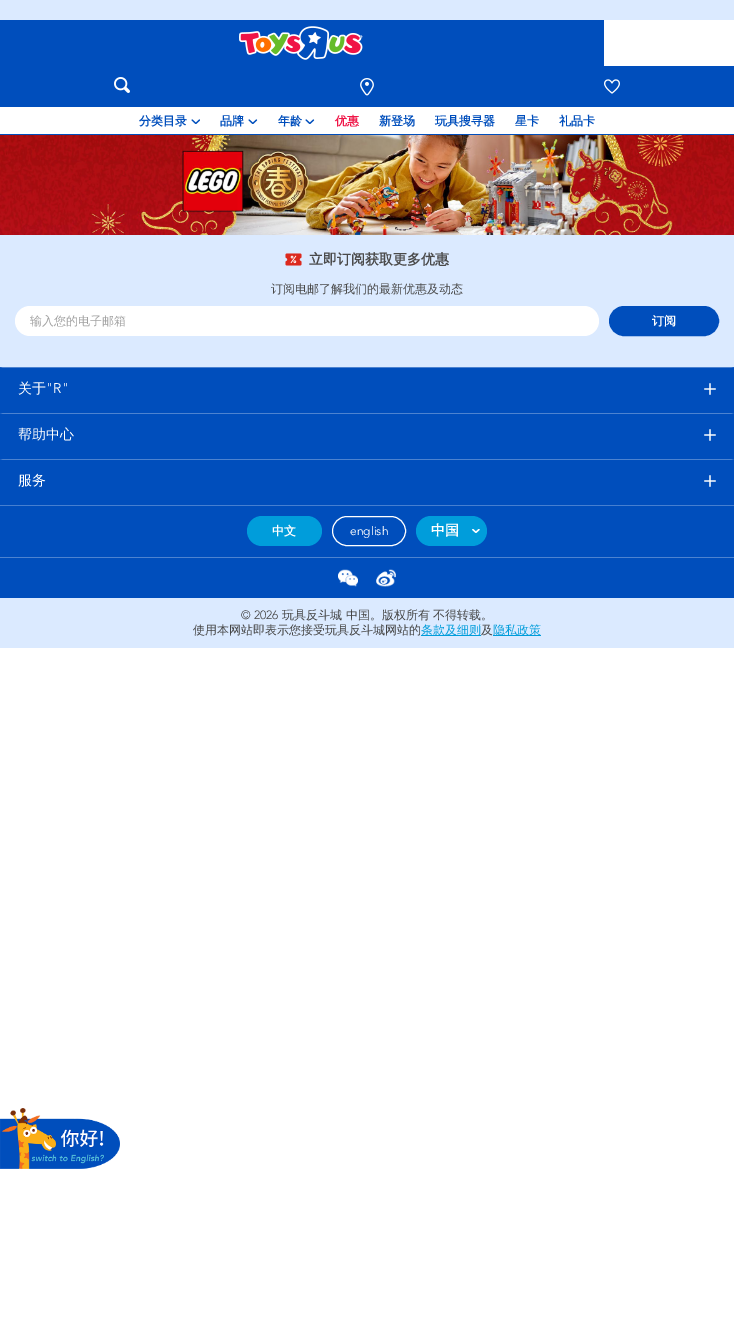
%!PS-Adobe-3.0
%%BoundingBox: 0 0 734 1319
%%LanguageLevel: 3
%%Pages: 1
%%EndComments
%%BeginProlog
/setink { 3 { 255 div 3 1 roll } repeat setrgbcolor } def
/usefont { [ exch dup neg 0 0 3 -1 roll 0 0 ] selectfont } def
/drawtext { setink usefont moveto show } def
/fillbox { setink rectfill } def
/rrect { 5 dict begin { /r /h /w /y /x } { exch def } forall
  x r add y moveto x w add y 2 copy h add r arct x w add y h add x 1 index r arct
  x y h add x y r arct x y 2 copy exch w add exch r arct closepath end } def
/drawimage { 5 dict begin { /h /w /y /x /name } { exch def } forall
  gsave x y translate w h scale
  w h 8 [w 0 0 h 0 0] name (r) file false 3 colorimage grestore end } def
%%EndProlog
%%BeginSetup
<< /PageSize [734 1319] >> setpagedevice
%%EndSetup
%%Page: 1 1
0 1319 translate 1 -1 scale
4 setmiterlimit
0 0 734 1319 255 255 255 fillbox
0 0 734 20 219 234 255 fillbox
0 20 734 115 0 78 188 fillbox
(assets/img1.rgb) 239 26 124 34 drawimage
604 20 130 46 255 255 255 fillbox
(assets/img2.rgb) 114 77 16 16 drawimage
(assets/img3.rgb) 360 78 14 18 drawimage
(assets/img4.rgb) 604 79 16 15 drawimage
0 107 734 27 255 255 255 fillbox
(分类目录) 139 125 /WenQuanYiZenHei-Bold 12 0 78 188 drawtext
(assets/img5.rgb) 191 119 9 5 drawimage
(品牌) 220 125 /WenQuanYiZenHei-Bold 12 0 78 188 drawtext
(assets/img6.rgb) 248 119 10 5 drawimage
(年龄) 278 125 /WenQuanYiZenHei-Bold 12 0 78 188 drawtext
(assets/img6.rgb) 305 119 10 5 drawimage
(优惠) 335 125 /WenQuanYiZenHei-Bold 12 240 20 70 drawtext
(新登场) 379 125 /WenQuanYiZenHei-Bold 12 0 78 188 drawtext
(玩具搜寻器) 435 125 /WenQuanYiZenHei-Bold 12 0 78 188 drawtext
(星卡) 515 125 /WenQuanYiZenHei-Bold 12 0 78 188 drawtext
(礼品卡) 559 125 /WenQuanYiZenHei-Bold 12 0 78 188 drawtext
(assets/img7.rgb) 0 135 734 100 drawimage
0 367 734 231 0 78 188 fillbox
0 235 734 132 219 234 255 fillbox
(assets/img8.rgb) 285 253 17 13 drawimage
(立即订阅获取更多优惠) 309 264 /WenQuanYiZenHei-Bold 14 74 74 74 drawtext
(订阅电邮了解我们的最新优惠及动态) 271 293 /WenQuanYiZenHei-Medium 12 74 74 74 drawtext
255 255 255 setink
15 306 584 30 15 rrect fill
(输入您的电子邮箱) 30 325 /WenQuanYiZenHei-Medium 12 162 162 162 drawtext
0 78 188 setink
610.5 307.5 107 27 13.5 rrect gsave fill grestore
3 setlinewidth
stroke
(订阅) 652 325 /WenQuanYiZenHei-Bold 12 255 255 255 drawtext
77 131 208 setink
0 367 moveto 734 367 lineto 731 368 lineto 3 368 lineto closepath fill
(关于) 18 393 /WenQuanYiZenHei-Medium 14 255 255 255 drawtext
("R") 46 393 /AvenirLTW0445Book-Regular 14 255 255 255 drawtext
(assets/img9.rgb) 704 383 12 12 drawimage
77 131 208 setink
0 413 moveto 734 413 lineto 731 414 lineto 3 414 lineto closepath fill
(帮助中心) 18 439 /WenQuanYiZenHei-Medium 14 255 255 255 drawtext
(assets/img9.rgb) 704 429 12 12 drawimage
77 131 208 setink
0 459 moveto 734 459 lineto 731 460 lineto 3 460 lineto closepath fill
(服务) 18 485 /WenQuanYiZenHei-Medium 14 255 255 255 drawtext
(assets/img9.rgb) 704 475 12 12 drawimage
0 505 734 1 70 127 208 fillbox
0 157 219 setink
247 516 75 30 15 rrect fill
(中文) 272 535 /WenQuanYiZenHei-Bold 12 255 255 255 drawtext
1 setlinewidth
332.5 516.5 73 29 14.5 rrect stroke
(english) 350 535 /AvenirLTW0445Book-Regular 12 255 255 255 drawtext
0 157 219 setink
416 516 71 30 15 rrect fill
(中国) 431 535 /WenQuanYiZenHei-Bold 14 255 255 255 drawtext
(assets/img10.rgb) 472 529 8 4 drawimage
0 557 734 1 77 131 208 fillbox
(assets/img11.rgb) 338 569 20 18 drawimage
(assets/img12.rgb) 376 569 20 18 drawimage
0 598 734 50 219 234 255 fillbox
(© 2026) 241 619 /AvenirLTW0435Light-Light 12 68 68 68 drawtext
(玩具反斗城 中国。版权所有 不得转载。) 282 619 /WenQuanYiZenHei-Medium 12 68 68 68 drawtext
(使用本网站即表示您接受玩具反斗城网站的) 193 634 /WenQuanYiZenHei-Medium 12 68 68 68 drawtext
421 635 60 1 0 157 219 fillbox
(条款及细则) 421 634 /WenQuanYiZenHei-Medium 12 0 157 219 drawtext
(及) 481 634 /WenQuanYiZenHei-Medium 12 68 68 68 drawtext
493 635 48 1 0 157 219 fillbox
(隐私政策) 493 634 /WenQuanYiZenHei-Medium 12 0 157 219 drawtext
(assets/img13.rgb) 0 1108 120 61 drawimage
showpage
%%EOF
